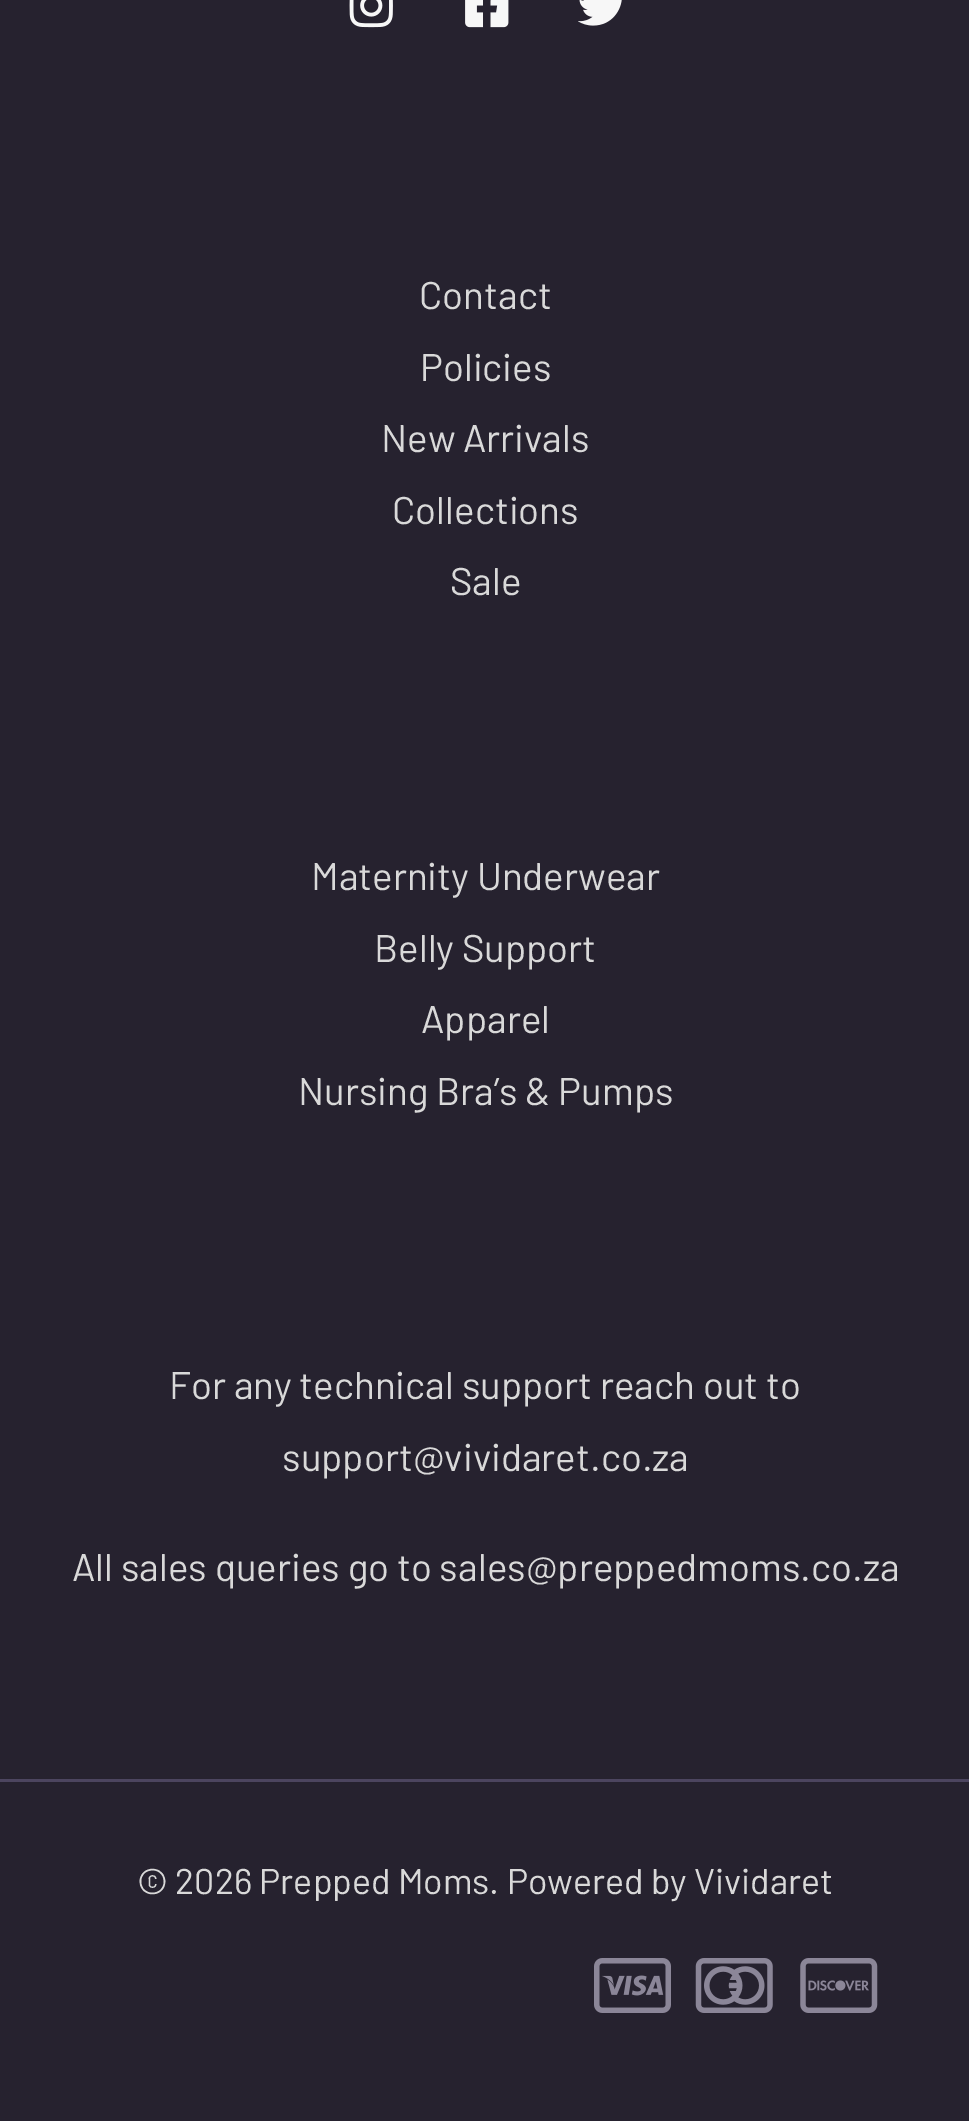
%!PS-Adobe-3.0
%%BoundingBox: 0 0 969 2121
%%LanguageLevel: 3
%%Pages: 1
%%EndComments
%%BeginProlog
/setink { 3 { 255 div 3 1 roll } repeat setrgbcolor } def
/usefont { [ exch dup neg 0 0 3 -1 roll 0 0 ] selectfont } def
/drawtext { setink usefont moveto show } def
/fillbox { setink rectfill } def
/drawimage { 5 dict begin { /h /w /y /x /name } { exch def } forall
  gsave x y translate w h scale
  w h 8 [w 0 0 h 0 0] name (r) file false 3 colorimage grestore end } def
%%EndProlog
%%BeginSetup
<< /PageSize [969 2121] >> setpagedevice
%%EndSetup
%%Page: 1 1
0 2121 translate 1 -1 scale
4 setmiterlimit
0 0 969 2121 38 34 47 fillbox
(assets/img1.rgb) 349 0 44 28 drawimage
(assets/img2.rgb) 465 0 44 28 drawimage
(assets/img3.rgb) 578 0 44 26 drawimage
(Contact) 419 309 /Barlow-Regular 38.5 217 217 217 drawtext
(Policies) 420 381 /Barlow-Regular 38.5 217 217 217 drawtext
(New Arrivals) 381 452 /Barlow-Regular 38.5 217 217 217 drawtext
(Collections) 392 524 /Barlow-Regular 38.5 217 217 217 drawtext
(Sale) 450 595 /Barlow-Regular 38.5 217 217 217 drawtext
(Maternity Underwear) 311 890 /Barlow-Regular 38.5 217 217 217 drawtext
(Belly Support) 374 962 /Barlow-Regular 38.5 217 217 217 drawtext
(Apparel) 421 1033 /Barlow-Regular 38.5 217 217 217 drawtext
(Nursing Bra’s & Pumps) 298 1105 /Barlow-Regular 38.5 217 217 217 drawtext
(For any technical support reach out to) 169 1399 /Barlow-Regular 38.5 217 217 217 drawtext
(support@vividaret.co.za) 282 1471 /Barlow-Regular 38.5 217 217 217 drawtext
(All sales queries go to sales@preppedmoms.co.za) 72 1581 /Barlow-Regular 38.5 217 217 217 drawtext
0 1779 969 3 76 69 95 fillbox
(© 2026 Prepped Moms. Powered by Vividaret) 137 1894 /Barlow-Regular 35.75 217 217 217 drawtext
(assets/img4.rgb) 594 1958 77 55 drawimage
(assets/img5.rgb) 695 1958 78 55 drawimage
(assets/img6.rgb) 800 1958 78 55 drawimage
showpage
%%EOF
